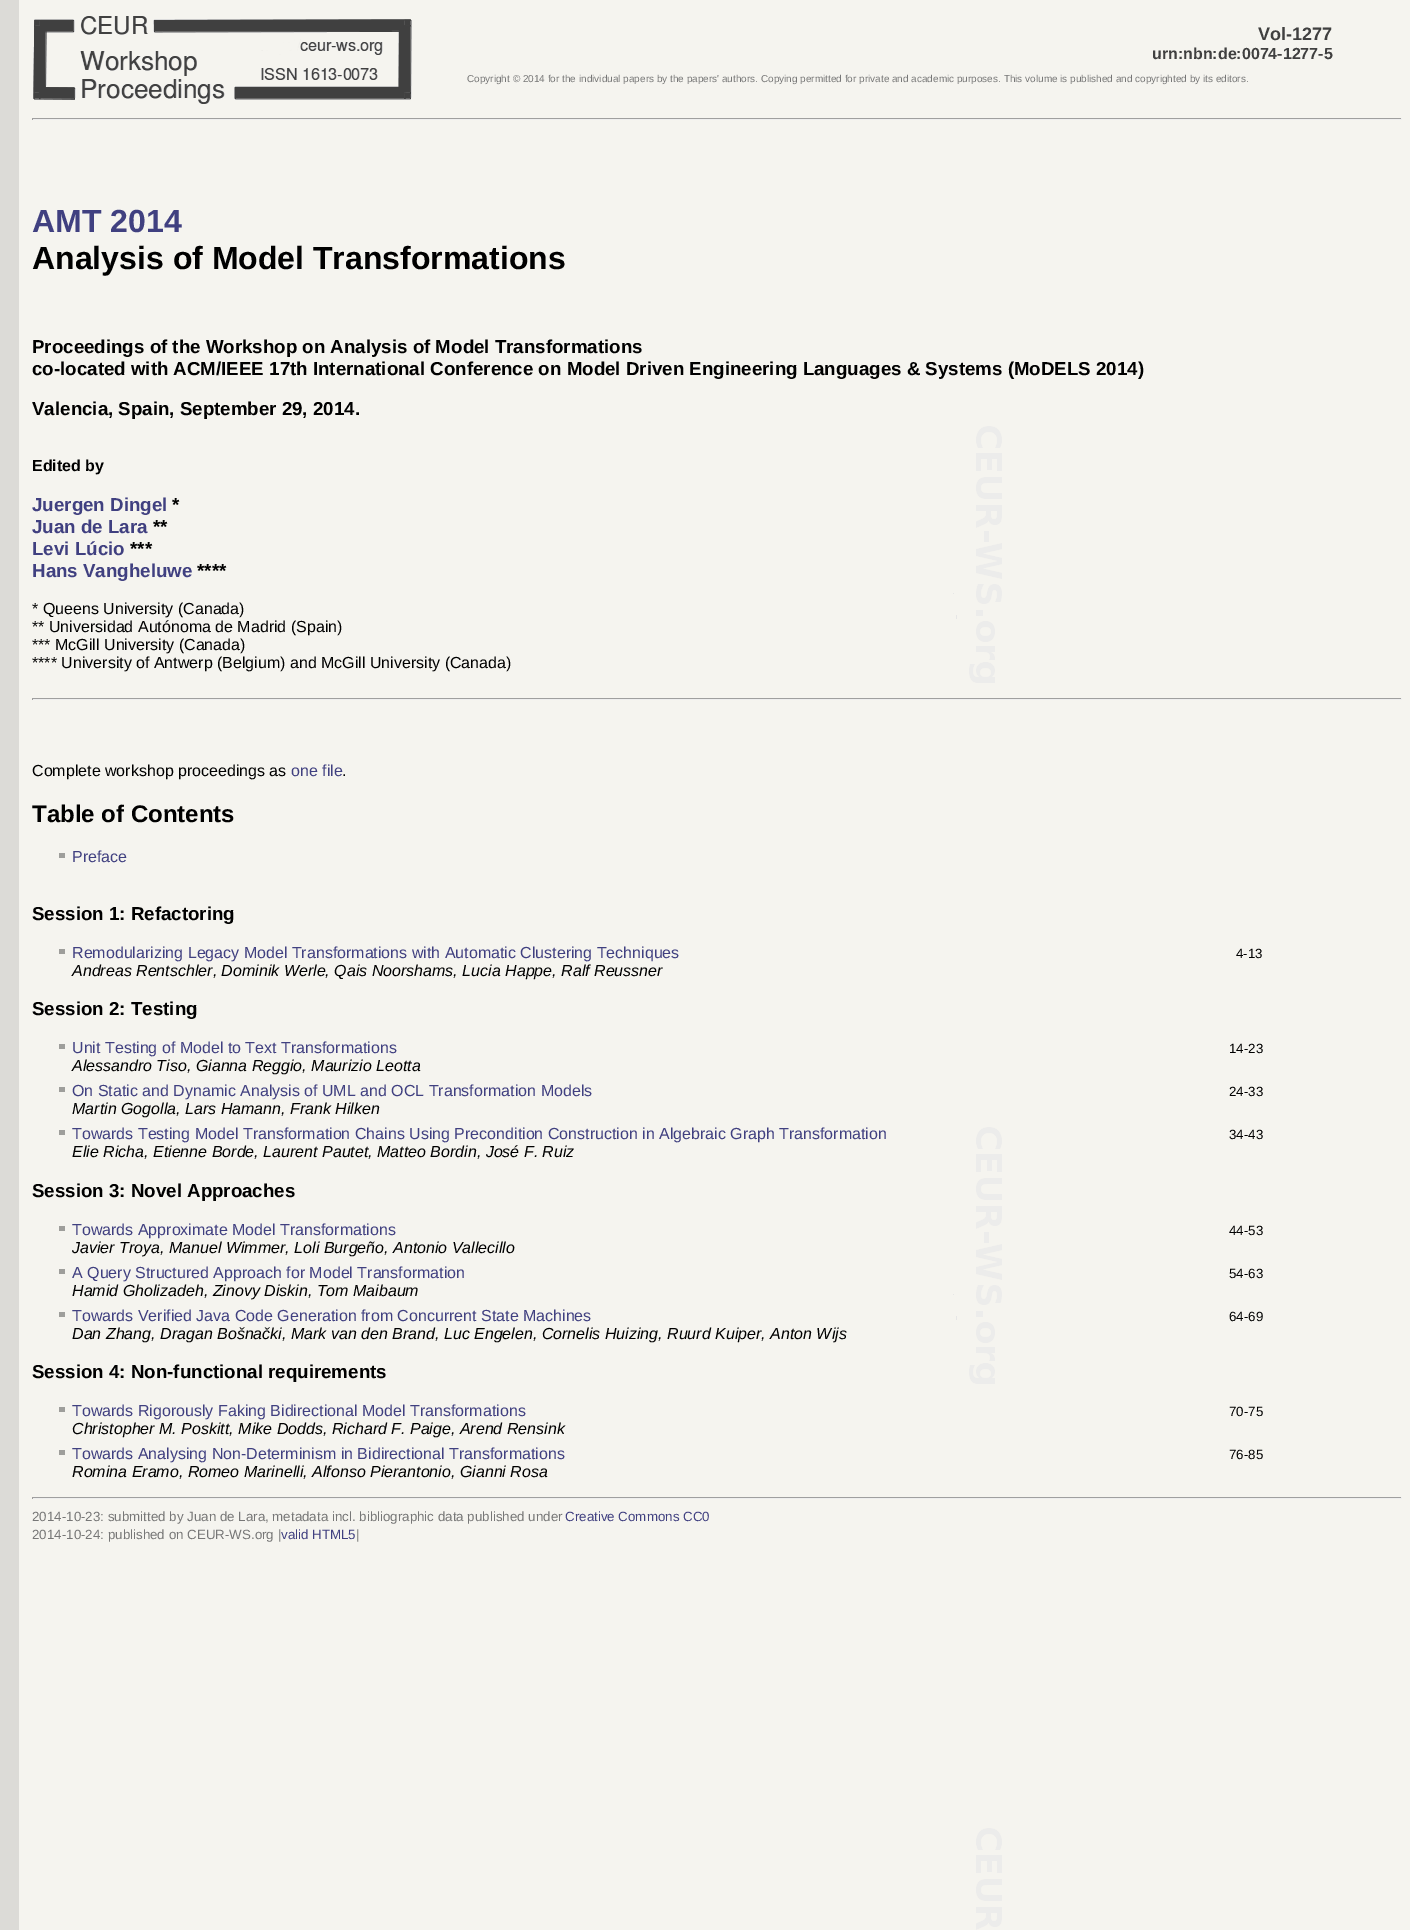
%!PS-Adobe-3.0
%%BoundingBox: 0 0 1410 1930
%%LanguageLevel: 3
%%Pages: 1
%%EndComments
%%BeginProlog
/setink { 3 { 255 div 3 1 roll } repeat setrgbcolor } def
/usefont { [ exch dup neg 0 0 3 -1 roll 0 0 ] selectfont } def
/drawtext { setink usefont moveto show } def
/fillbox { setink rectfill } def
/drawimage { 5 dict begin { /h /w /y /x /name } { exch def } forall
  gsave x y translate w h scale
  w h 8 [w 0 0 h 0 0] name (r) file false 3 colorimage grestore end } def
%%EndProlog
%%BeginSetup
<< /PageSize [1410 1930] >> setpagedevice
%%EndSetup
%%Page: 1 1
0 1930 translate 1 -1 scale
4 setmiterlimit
0 0 1410 1930 255 255 255 fillbox
(assets/img1.rgb) 0 0 1410 1930 drawimage
(assets/img2.rgb) 33 16 379 88 drawimage
(Vol-1277) 1258 40 /LiberationSans-Bold 18 64 64 64 drawtext
(urn:nbn:de:0074-1277-5) 1152 59 /LiberationSans-Bold 16 64 64 64 drawtext
(Copyright © 2014 for the individual papers by the papers' authors. Copying permitted for private and academic purposes. This volume is published and copyrighted by its editors.) 467 82 /LiberationSans-Regular 10 119 119 119 drawtext
32 118 1370 1 159 159 159 fillbox
1401 118 1 2 238 238 238 fillbox
32 119 1370 1 238 238 238 fillbox
32 118 1 2 159 159 159 fillbox
(AMT 2014) 32 232 /LiberationSans-Bold 32 64 64 128 drawtext
(Analysis of Model Transformations) 32 269 /LiberationSans-Bold 32 0 0 0 drawtext
(Proceedings of the Workshop on Analysis of Model Transformations) 32 353 /LiberationSans-Bold 18.72 0 0 0 drawtext
(co-located with ACM/IEEE 17th International Conference on Model Driven Engineering Languages & Systems \(MoDELS 2014\)) 32 375 /LiberationSans-Bold 18.72 0 0 0 drawtext
(Valencia, Spain, September 29, 2014.) 32 415 /LiberationSans-Bold 18.72 0 0 0 drawtext
(Edited by) 32 471 /LiberationSans-Bold 16 0 0 0 drawtext
(Juergen Dingel) 32 511 /LiberationSans-Bold 18.72 64 64 128 drawtext
(*) 172 511 /LiberationSans-Bold 18.72 0 0 0 drawtext
(Juan de Lara) 32 533 /LiberationSans-Bold 18.72 64 64 128 drawtext
(**) 153 533 /LiberationSans-Bold 18.72 0 0 0 drawtext
(Levi Lúcio) 32 555 /LiberationSans-Bold 18.72 64 64 128 drawtext
(***) 130 555 /LiberationSans-Bold 18.72 0 0 0 drawtext
(Hans Vangheluwe) 32 577 /LiberationSans-Bold 18.72 64 64 128 drawtext
(****) 197 577 /LiberationSans-Bold 18.72 0 0 0 drawtext
(* Queens University \(Canada\)) 32 614 /LiberationSans-Regular 16 0 0 0 drawtext
(** Universidad Autónoma de Madrid \(Spain\)) 32 632 /LiberationSans-Regular 16 0 0 0 drawtext
(*** McGill University \(Canada\)) 32 650 /LiberationSans-Regular 16 0 0 0 drawtext
(**** University of Antwerp \(Belgium\) and McGill University \(Canada\)) 32 668 /LiberationSans-Regular 16 0 0 0 drawtext
32 698 1370 1 159 159 159 fillbox
1401 698 1 2 238 238 238 fillbox
32 699 1370 1 238 238 238 fillbox
32 698 1 2 159 159 159 fillbox
(Complete workshop proceedings as) 32 776 /LiberationSans-Regular 16 0 0 0 drawtext
(one file) 291 776 /LiberationSans-Regular 16 64 64 128 drawtext
(.) 342 776 /LiberationSans-Regular 16 0 0 0 drawtext
(Table of Contents) 32 822 /LiberationSans-Bold 24 0 0 0 drawtext
59 853 6 5 158 158 155 fillbox
(Preface) 72 862 /LiberationSans-Regular 16 64 64 128 drawtext
(Session 1: Refactoring) 32 920 /LiberationSans-Bold 18.72 0 0 0 drawtext
59 949 6 5 158 158 155 fillbox
(Remodularizing Legacy Model Transformations with Automatic Clustering Techniques) 72 958 /LiberationSans-Regular 16 64 64 128 drawtext
(4-13) 1236 958 /LiberationSans-Regular 13.35 0 0 0 drawtext
(Andreas Rentschler, Dominik Werle, Qais Noorshams, Lucia Happe, Ralf Reussner) 72 976 /LiberationSans-Italic 16 0 0 0 drawtext
(Session 2: Testing) 32 1015 /LiberationSans-Bold 18.72 0 0 0 drawtext
59 1044 6 5 158 158 155 fillbox
(Unit Testing of Model to Text Transformations) 72 1053 /LiberationSans-Regular 16 64 64 128 drawtext
(14-23) 1229 1053 /LiberationSans-Regular 13.35 0 0 0 drawtext
(Alessandro Tiso, Gianna Reggio, Maurizio Leotta) 72 1071 /LiberationSans-Italic 16 0 0 0 drawtext
59 1087 6 5 158 158 155 fillbox
(On Static and Dynamic Analysis of UML and OCL Transformation Models) 72 1096 /LiberationSans-Regular 16 64 64 128 drawtext
(24-33) 1229 1096 /LiberationSans-Regular 13.35 0 0 0 drawtext
(Martin Gogolla, Lars Hamann, Frank Hilken) 72 1114 /LiberationSans-Italic 16 0 0 0 drawtext
59 1130 6 5 158 158 155 fillbox
(Towards Testing Model Transformation Chains Using Precondition Construction in Algebraic Graph Transformation) 72 1139 /LiberationSans-Regular 16 64 64 128 drawtext
(34-43) 1229 1139 /LiberationSans-Regular 13.35 0 0 0 drawtext
(Elie Richa, Etienne Borde, Laurent Pautet, Matteo Bordin, José F. Ruiz) 72 1157 /LiberationSans-Italic 16 0 0 0 drawtext
(Session 3: Novel Approaches) 32 1197 /LiberationSans-Bold 18.72 0 0 0 drawtext
59 1226 6 5 158 158 155 fillbox
(Towards Approximate Model Transformations) 72 1235 /LiberationSans-Regular 16 64 64 128 drawtext
(44-53) 1229 1235 /LiberationSans-Regular 13.35 0 0 0 drawtext
(Javier Troya, Manuel Wimmer, Loli Burgeño, Antonio Vallecillo) 72 1253 /LiberationSans-Italic 16 0 0 0 drawtext
59 1269 6 5 158 158 155 fillbox
(A Query Structured Approach for Model Transformation) 72 1278 /LiberationSans-Regular 16 64 64 128 drawtext
(54-63) 1229 1278 /LiberationSans-Regular 13.35 0 0 0 drawtext
(Hamid Gholizadeh, Zinovy Diskin, Tom Maibaum) 72 1296 /LiberationSans-Italic 16 0 0 0 drawtext
59 1312 6 5 158 158 155 fillbox
(Towards Verified Java Code Generation from Concurrent State Machines) 72 1321 /LiberationSans-Regular 16 64 64 128 drawtext
(64-69) 1229 1321 /LiberationSans-Regular 13.35 0 0 0 drawtext
(Dan Zhang, Dragan Bošnački, Mark van den Brand, Luc Engelen, Cornelis Huizing, Ruurd Kuiper, Anton Wijs) 72 1339 /LiberationSans-Italic 16 0 0 0 drawtext
(Session 4: Non-functional requirements) 32 1378 /LiberationSans-Bold 18.72 0 0 0 drawtext
59 1407 6 5 158 158 155 fillbox
(Towards Rigorously Faking Bidirectional Model Transformations) 72 1416 /LiberationSans-Regular 16 64 64 128 drawtext
(70-75) 1229 1416 /LiberationSans-Regular 13.35 0 0 0 drawtext
(Christopher M. Poskitt, Mike Dodds, Richard F. Paige, Arend Rensink) 72 1434 /LiberationSans-Italic 16 0 0 0 drawtext
59 1450 6 5 158 158 155 fillbox
(Towards Analysing Non-Determinism in Bidirectional Transformations) 72 1459 /LiberationSans-Regular 16 64 64 128 drawtext
(76-85) 1229 1459 /LiberationSans-Regular 13.35 0 0 0 drawtext
(Romina Eramo, Romeo Marinelli, Alfonso Pierantonio, Gianni Rosa) 72 1477 /LiberationSans-Italic 16 0 0 0 drawtext
32 1497 1370 1 159 159 159 fillbox
1401 1497 1 2 238 238 238 fillbox
32 1498 1370 1 238 238 238 fillbox
32 1497 1 2 159 159 159 fillbox
(2014-10-23: submitted by Juan de Lara, metadata incl. bibliographic data published under) 32 1521 /LiberationSans-Regular 13.35 119 119 119 drawtext
(Creative Commons CC0) 565 1521 /LiberationSans-Regular 13.35 64 64 128 drawtext
(2014-10-24: published on CEUR-WS.org |) 32 1539 /LiberationSans-Regular 13.35 119 119 119 drawtext
(valid HTML5) 281 1539 /LiberationSans-Regular 13.35 64 64 128 drawtext
(|) 356 1539 /LiberationSans-Regular 13.35 119 119 119 drawtext
showpage
%%EOF
